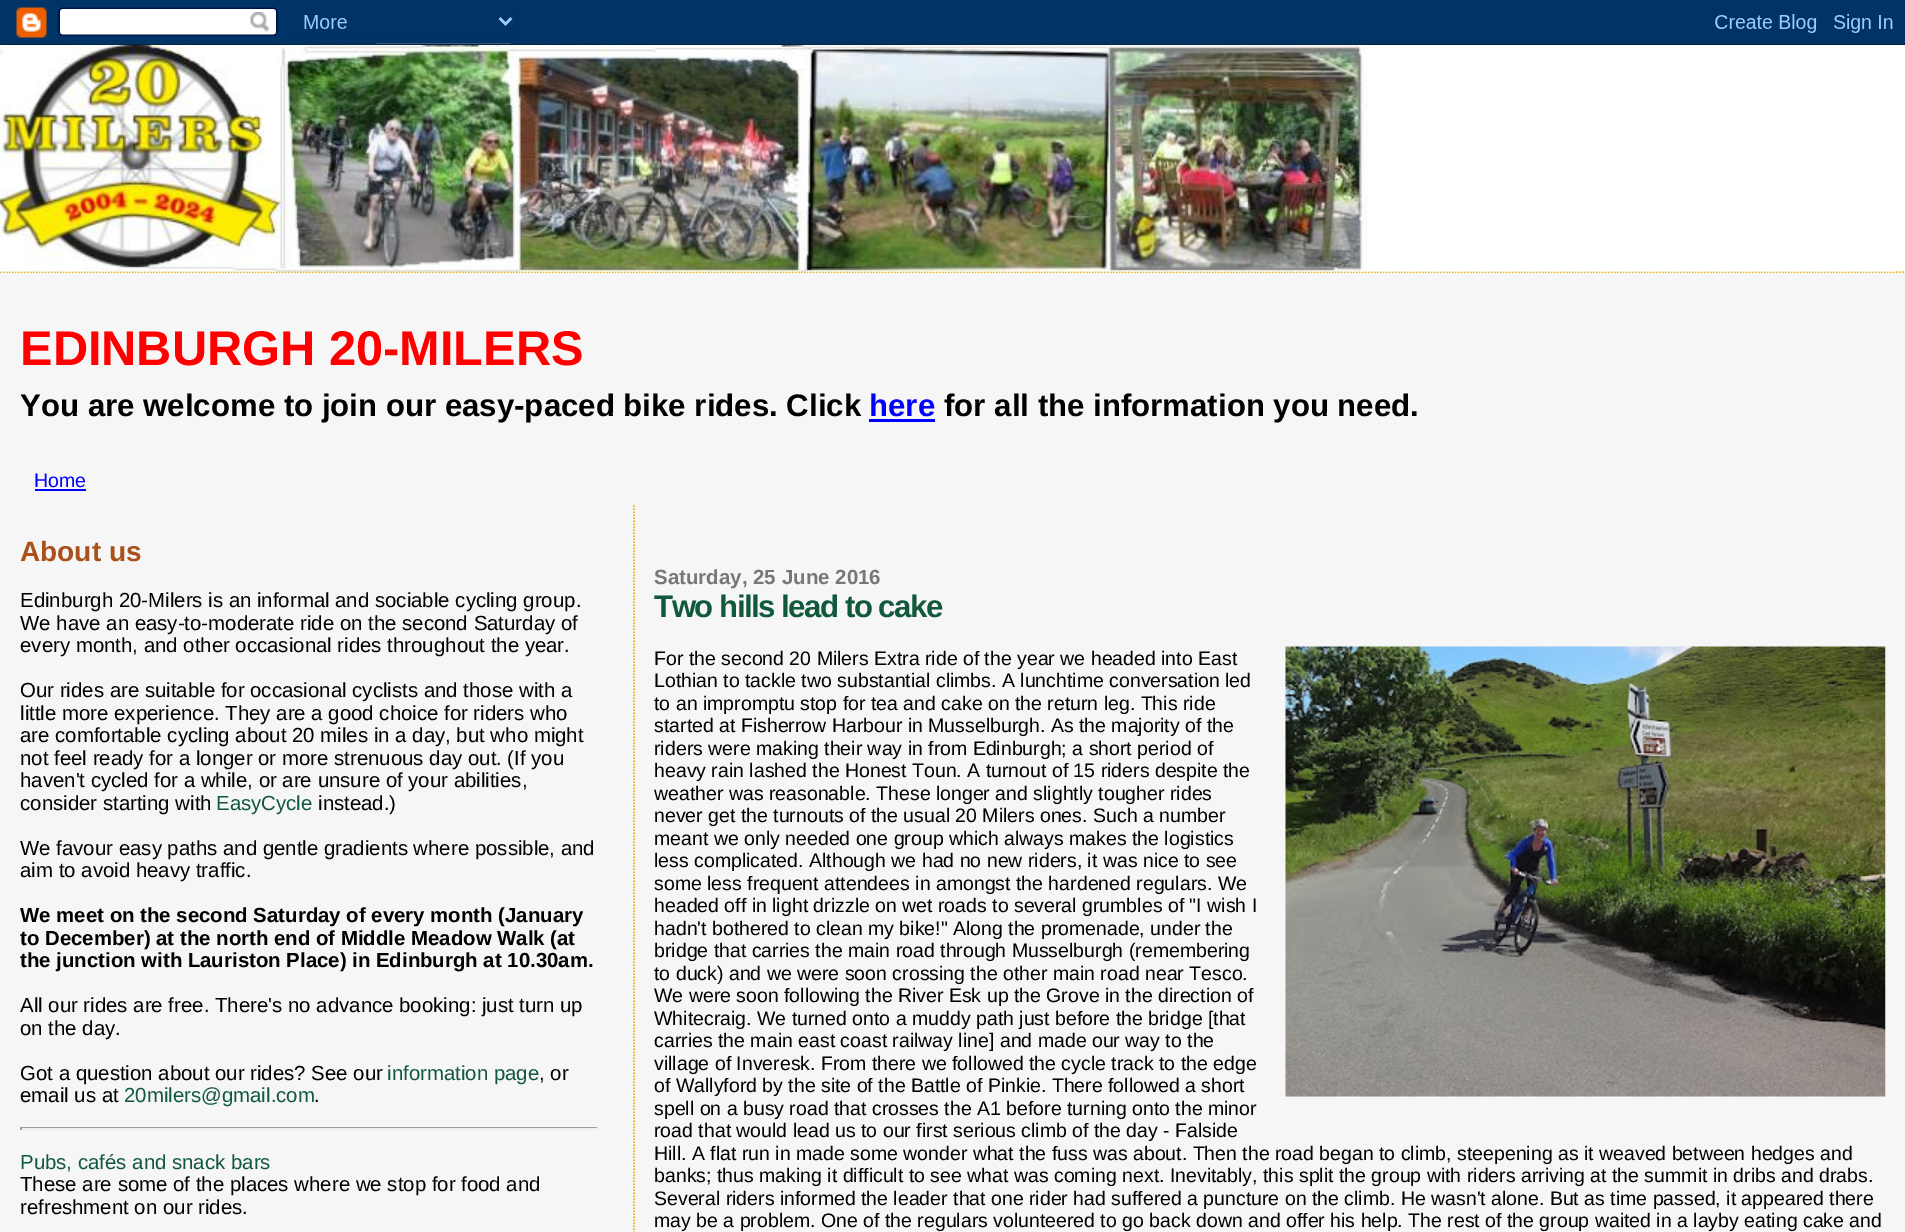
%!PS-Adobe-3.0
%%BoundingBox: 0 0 1905 1232
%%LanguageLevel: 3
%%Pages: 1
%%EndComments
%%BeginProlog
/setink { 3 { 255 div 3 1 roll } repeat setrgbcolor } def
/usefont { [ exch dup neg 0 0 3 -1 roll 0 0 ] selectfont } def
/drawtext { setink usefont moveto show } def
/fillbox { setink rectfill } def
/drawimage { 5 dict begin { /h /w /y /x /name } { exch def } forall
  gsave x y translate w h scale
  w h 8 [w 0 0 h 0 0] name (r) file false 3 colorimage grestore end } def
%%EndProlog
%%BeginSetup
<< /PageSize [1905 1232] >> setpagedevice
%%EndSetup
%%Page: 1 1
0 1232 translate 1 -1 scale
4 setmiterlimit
0 0 1905 1232 246 246 246 fillbox
(assets/img1.rgb) 0 0 1905 45 drawimage
0 45 1905 228 255 255 255 fillbox
224 173 18 setink
1.5 setlinewidth
[1.5 1.5] 0 setdash
0 272 moveto 1905 272 lineto stroke
(assets/img2.rgb) 0 45 1895 227 drawimage
(EDINBURGH 20-MILERS) 20 365 /LiberationSans-Bold 48.75 255 0 0 drawtext
(You are welcome to join our easy-paced bike rides. Click) 20 416 /LiberationSans-Bold 31.2 0 0 0 drawtext
(here) 869 416 /LiberationSans-Bold 31.2 0 0 255 drawtext
869 419 66 3 0 0 255 fillbox
(for all the information you need.) 944 416 /LiberationSans-Bold 31.2 0 0 0 drawtext
(Home) 34 487 /LiberationSans-Regular 19.5 0 0 255 drawtext
35 489 51 2 0 0 255 fillbox
(About us) 20 561 /LiberationSans-Bold 28 169 80 27 drawtext
(Edinburgh 20-Milers is an informal and sociable cycling group.) 20 607 /LiberationSans-Regular 20.4 0 0 0 drawtext
(We have an easy-to-moderate ride on the second Saturday of) 20 630 /LiberationSans-Regular 20.4 0 0 0 drawtext
(every month, and other occasional rides throughout the year.) 20 652 /LiberationSans-Regular 20.4 0 0 0 drawtext
(Our rides are suitable for occasional cyclists and those with a) 20 697 /LiberationSans-Regular 20.4 0 0 0 drawtext
(little more experience. They are a good choice for riders who) 20 720 /LiberationSans-Regular 20.4 0 0 0 drawtext
(are comfortable cycling about 20 miles in a day, but who might) 20 742 /LiberationSans-Regular 20.4 0 0 0 drawtext
(not feel ready for a longer or more strenuous day out. \(If you) 20 765 /LiberationSans-Regular 20.4 0 0 0 drawtext
(haven't cycled for a while, or are unsure of your abilities,) 20 787 /LiberationSans-Regular 20.4 0 0 0 drawtext
(consider starting with) 20 810 /LiberationSans-Regular 20.4 0 0 0 drawtext
(EasyCycle) 216 810 /LiberationSans-Regular 20.4 17 89 60 drawtext
(instead.\)) 318 810 /LiberationSans-Regular 20.4 0 0 0 drawtext
(We favour easy paths and gentle gradients where possible, and) 20 855 /LiberationSans-Regular 20.4 0 0 0 drawtext
(aim to avoid heavy traffic.) 20 877 /LiberationSans-Regular 20.4 0 0 0 drawtext
(We meet on the second Saturday of every month \(January) 20 922 /LiberationSans-Bold 20.4 0 0 0 drawtext
(to December\) at the north end of Middle Meadow Walk \(at) 20 945 /LiberationSans-Bold 20.4 0 0 0 drawtext
(the junction with Lauriston Place\) in Edinburgh at 10.30am.) 20 967 /LiberationSans-Bold 20.4 0 0 0 drawtext
(All our rides are free. There's no advance booking: just turn up) 20 1012 /LiberationSans-Regular 20.4 0 0 0 drawtext
(on the day.) 20 1035 /LiberationSans-Regular 20.4 0 0 0 drawtext
(Got a question about our rides? See our) 20 1080 /LiberationSans-Regular 20.4 0 0 0 drawtext
(information page) 387 1080 /LiberationSans-Regular 20.4 17 89 60 drawtext
(, or) 539 1080 /LiberationSans-Regular 20.4 0 0 0 drawtext
(email us at) 20 1102 /LiberationSans-Regular 20.4 0 0 0 drawtext
(20milers@gmail.com) 124 1102 /LiberationSans-Regular 20.4 17 89 60 drawtext
(.) 314 1102 /LiberationSans-Regular 20.4 0 0 0 drawtext
20 1127 579 1 159 159 159 fillbox
597 1127 2 3 238 238 238 fillbox
20 1128 579 2 238 238 238 fillbox
20 1127 2 3 159 159 159 fillbox
(Pubs, cafés and snack bars) 20 1169 /LiberationSans-Regular 20.4 17 89 60 drawtext
(These are some of the places where we stop for food and) 20 1191 /LiberationSans-Regular 20.4 0 0 0 drawtext
(refreshment on our rides.) 20 1214 /LiberationSans-Regular 20.4 0 0 0 drawtext
224 173 18 setink
634 505.5 moveto 634 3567 lineto stroke
(Saturday, 25 June 2016) 654 584 /LiberationSans-Bold 20.5 119 119 119 drawtext
/LiberationSans-Bold 31.2 usefont
17 89 60 setink
654 617 moveto -1.5 0 (Two hills lead to cake) ashow
(For the second 20 Milers Extra ride of the year we headed into East) 654 665 /LiberationSans-Regular 19.5 0 0 0 drawtext
(assets/img3.rgb) 1285 646 601 451 drawimage
(Lothian to tackle two substantial climbs. A lunchtime conversation led) 654 687 /LiberationSans-Regular 19.5 0 0 0 drawtext
(to an impromptu stop for tea and cake on the return leg. This ride) 654 710 /LiberationSans-Regular 19.5 0 0 0 drawtext
(started at Fisherrow Harbour in Musselburgh. As the majority of the) 654 732 /LiberationSans-Regular 19.5 0 0 0 drawtext
(riders were making their way in from Edinburgh; a short period of) 654 755 /LiberationSans-Regular 19.5 0 0 0 drawtext
(heavy rain lashed the Honest Toun. A turnout of 15 riders despite the) 654 777 /LiberationSans-Regular 19.5 0 0 0 drawtext
(weather was reasonable. These longer and slightly tougher rides) 654 800 /LiberationSans-Regular 19.5 0 0 0 drawtext
(never get the turnouts of the usual 20 Milers ones. Such a number) 654 822 /LiberationSans-Regular 19.5 0 0 0 drawtext
(meant we only needed one group which always makes the logistics) 654 845 /LiberationSans-Regular 19.5 0 0 0 drawtext
(less complicated. Although we had no new riders, it was nice to see) 654 867 /LiberationSans-Regular 19.5 0 0 0 drawtext
(some less frequent attendees in amongst the hardened regulars. We) 654 890 /LiberationSans-Regular 19.5 0 0 0 drawtext
(headed off in light drizzle on wet roads to several grumbles of "I wish I) 654 912 /LiberationSans-Regular 19.5 0 0 0 drawtext
(hadn't bothered to clean my bike!" Along the promenade, under the) 654 935 /LiberationSans-Regular 19.5 0 0 0 drawtext
(bridge that carries the main road through Musselburgh \(remembering) 654 957 /LiberationSans-Regular 19.5 0 0 0 drawtext
(to duck\) and we were soon crossing the other main road near Tesco.) 654 980 /LiberationSans-Regular 19.5 0 0 0 drawtext
(We were soon following the River Esk up the Grove in the direction of) 654 1002 /LiberationSans-Regular 19.5 0 0 0 drawtext
(Whitecraig. We turned onto a muddy path just before the bridge [that) 654 1025 /LiberationSans-Regular 19.5 0 0 0 drawtext
(carries the main east coast railway line] and made our way to the) 654 1047 /LiberationSans-Regular 19.5 0 0 0 drawtext
(village of Inveresk. From there we followed the cycle track to the edge) 654 1070 /LiberationSans-Regular 19.5 0 0 0 drawtext
(of Wallyford by the site of the Battle of Pinkie. There followed a short) 654 1092 /LiberationSans-Regular 19.5 0 0 0 drawtext
(spell on a busy road that crosses the A1 before turning onto the minor) 654 1115 /LiberationSans-Regular 19.5 0 0 0 drawtext
(road that would lead us to our first serious climb of the day - Falside) 654 1137 /LiberationSans-Regular 19.5 0 0 0 drawtext
(Hill. A flat run in made some wonder what the fuss was about. Then the road began to climb, steepening as it weaved between hedges and) 654 1160 /LiberationSans-Regular 19.5 0 0 0 drawtext
(banks; thus making it difficult to see what was coming next. Inevitably, this split the group with riders arriving at the summit in dribs and drabs.) 654 1182 /LiberationSans-Regular 19.5 0 0 0 drawtext
(Several riders informed the leader that one rider had suffered a puncture on the climb. He wasn't alone. But as time passed, it appeared there) 654 1205 /LiberationSans-Regular 19.5 0 0 0 drawtext
(may be a problem. One of the regulars volunteered to go back down and offer his help. The rest of the group waited in a layby eating cake and) 654 1227 /LiberationSans-Regular 19.5 0 0 0 drawtext
showpage
%%EOF
